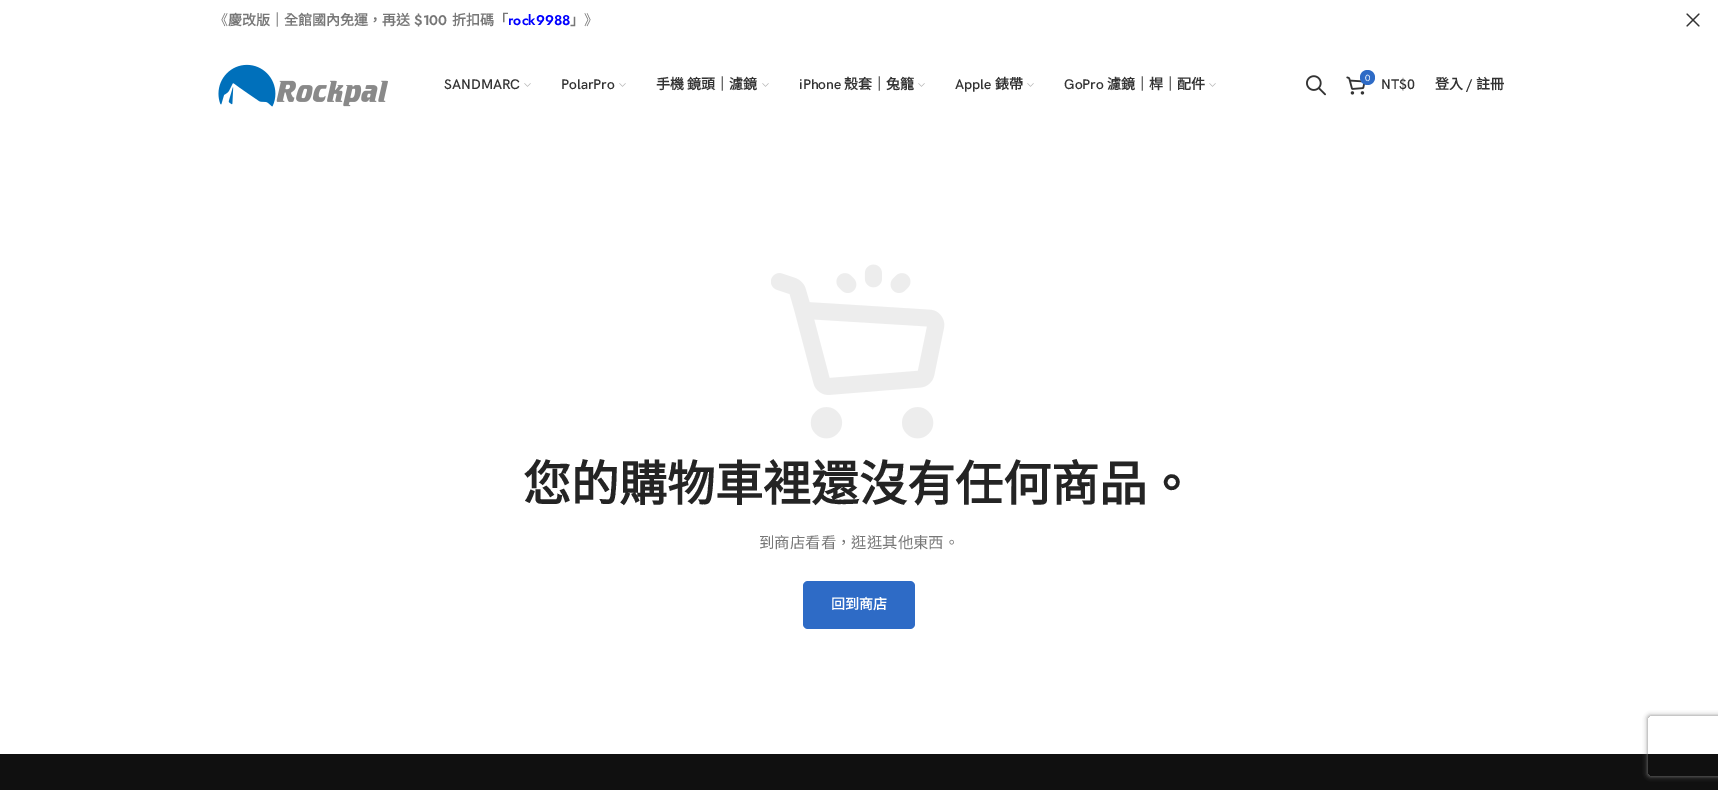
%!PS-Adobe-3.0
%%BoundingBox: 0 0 1718 790
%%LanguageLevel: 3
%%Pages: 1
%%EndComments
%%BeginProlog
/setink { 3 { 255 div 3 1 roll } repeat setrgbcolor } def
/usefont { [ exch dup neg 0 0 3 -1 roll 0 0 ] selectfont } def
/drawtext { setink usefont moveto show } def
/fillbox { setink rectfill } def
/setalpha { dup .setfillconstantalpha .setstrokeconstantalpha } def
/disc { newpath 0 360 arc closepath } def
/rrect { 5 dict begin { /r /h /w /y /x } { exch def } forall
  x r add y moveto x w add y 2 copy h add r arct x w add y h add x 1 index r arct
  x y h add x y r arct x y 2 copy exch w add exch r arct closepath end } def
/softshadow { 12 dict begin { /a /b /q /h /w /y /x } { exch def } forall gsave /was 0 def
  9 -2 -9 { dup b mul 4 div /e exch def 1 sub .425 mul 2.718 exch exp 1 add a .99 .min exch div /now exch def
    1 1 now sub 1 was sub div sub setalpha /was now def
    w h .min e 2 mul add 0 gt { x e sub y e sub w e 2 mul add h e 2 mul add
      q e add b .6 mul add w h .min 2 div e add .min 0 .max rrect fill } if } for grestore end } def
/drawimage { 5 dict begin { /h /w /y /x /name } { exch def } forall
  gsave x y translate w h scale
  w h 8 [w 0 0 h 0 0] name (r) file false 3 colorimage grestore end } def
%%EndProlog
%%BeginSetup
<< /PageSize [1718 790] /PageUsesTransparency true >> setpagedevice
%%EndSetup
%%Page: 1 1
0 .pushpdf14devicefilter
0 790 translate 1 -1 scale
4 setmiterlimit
0 0 1718 790 255 255 255 fillbox
(《) 214 25 /NotoSansCJKTC-Regular 14 119 119 119 drawtext
(慶改版｜全館國內免運，再送) 228 25 /NotoSansCJKTC-Bold 14 119 119 119 drawtext
($100) 414 25 /Jost-SemiBold 14 119 119 119 drawtext
(折扣碼「) 452 25 /NotoSansCJKTC-Bold 14 119 119 119 drawtext
(rock9988) 508 25 /Jost-SemiBold 14 0 0 255 drawtext
(」) 570 25 /NotoSansCJKTC-Bold 14 119 119 119 drawtext
(》) 584 25 /NotoSansCJKTC-Regular 14 119 119 119 drawtext
(assets/img1.rgb) 1686 13 14 14 drawimage
(assets/img2.rgb) 218 64 170 43 drawimage
(SANDMARC) 444 89 /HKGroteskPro-SemiBold 14 51 51 51 drawtext
(assets/img3.rgb) 524 83 7 4 drawimage
(PolarPro) 561 89 /HKGroteskPro-SemiBold 14 51 51 51 drawtext
(assets/img3.rgb) 619 83 7 4 drawimage
(手機 鏡頭｜濾鏡) 656 89 /NotoSansCJKTC-Bold 14 51 51 51 drawtext
(assets/img3.rgb) 762 83 7 4 drawimage
(iPhone) 799 89 /HKGroteskPro-SemiBold 14 51 51 51 drawtext
(殼套｜兔籠) 844 89 /NotoSansCJKTC-Bold 14 51 51 51 drawtext
(assets/img3.rgb) 918 83 7 4 drawimage
(Apple) 955 89 /HKGroteskPro-SemiBold 14 51 51 51 drawtext
(錶帶) 995 89 /NotoSansCJKTC-Bold 14 51 51 51 drawtext
(assets/img3.rgb) 1027 83 7 4 drawimage
(GoPro) 1064 89 /HKGroteskPro-SemiBold 14 51 51 51 drawtext
(濾鏡｜桿｜配件) 1107 89 /NotoSansCJKTC-Bold 14 51 51 51 drawtext
(assets/img3.rgb) 1209 83 7 4 drawimage
(assets/img4.rgb) 1306 75 20 21 drawimage
(assets/img5.rgb) 1346 76 19 19 drawimage
46 107 198 setink
1367.5 77.5 7.5 disc fill
(0) 1365 81 /Jost-Regular 9 255 255 255 drawtext
(NT$0) 1381 89 /HKGroteskPro-SemiBold 14 51 51 51 drawtext
(登入) 1435 89 /NotoSansCJKTC-Bold 14 51 51 51 drawtext
(/) 1466 89 /HKGroteskPro-SemiBold 14 51 51 51 drawtext
(註冊) 1476 89 /NotoSansCJKTC-Bold 14 51 51 51 drawtext
(assets/img6.rgb) 771 264 174 175 drawimage
(您的購物車裡還沒有任何商品。) 523 501 /NotoSansCJKTC-Bold 48 36 36 36 drawtext
(到商店看看，逛逛其他東西。) 759 548 /NotoSansCJKTC-Regular 15.4 119 119 119 drawtext
46 107 198 setink
803 581 112 48 5 rrect fill
(回到商店) 831 609 /NotoSansCJKTC-Bold 14 255 255 255 drawtext
0 754 1718 36 16 16 16 fillbox
gsave
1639 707 moveto 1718 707 lineto 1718 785 lineto 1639 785 lineto closepath 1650 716 moveto 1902 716 lineto 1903 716 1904 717 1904 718 curveto 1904 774 lineto 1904 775 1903 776 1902 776 curveto 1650 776 lineto 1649 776 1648 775 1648 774 curveto 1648 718 lineto 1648 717 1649 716 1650 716 curveto closepath eoclip newpath
128 128 128 setink
1648 716 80 60 2 2.5 1 softshadow
grestore
.poppdf14devicefilter showpage
%%EOF
